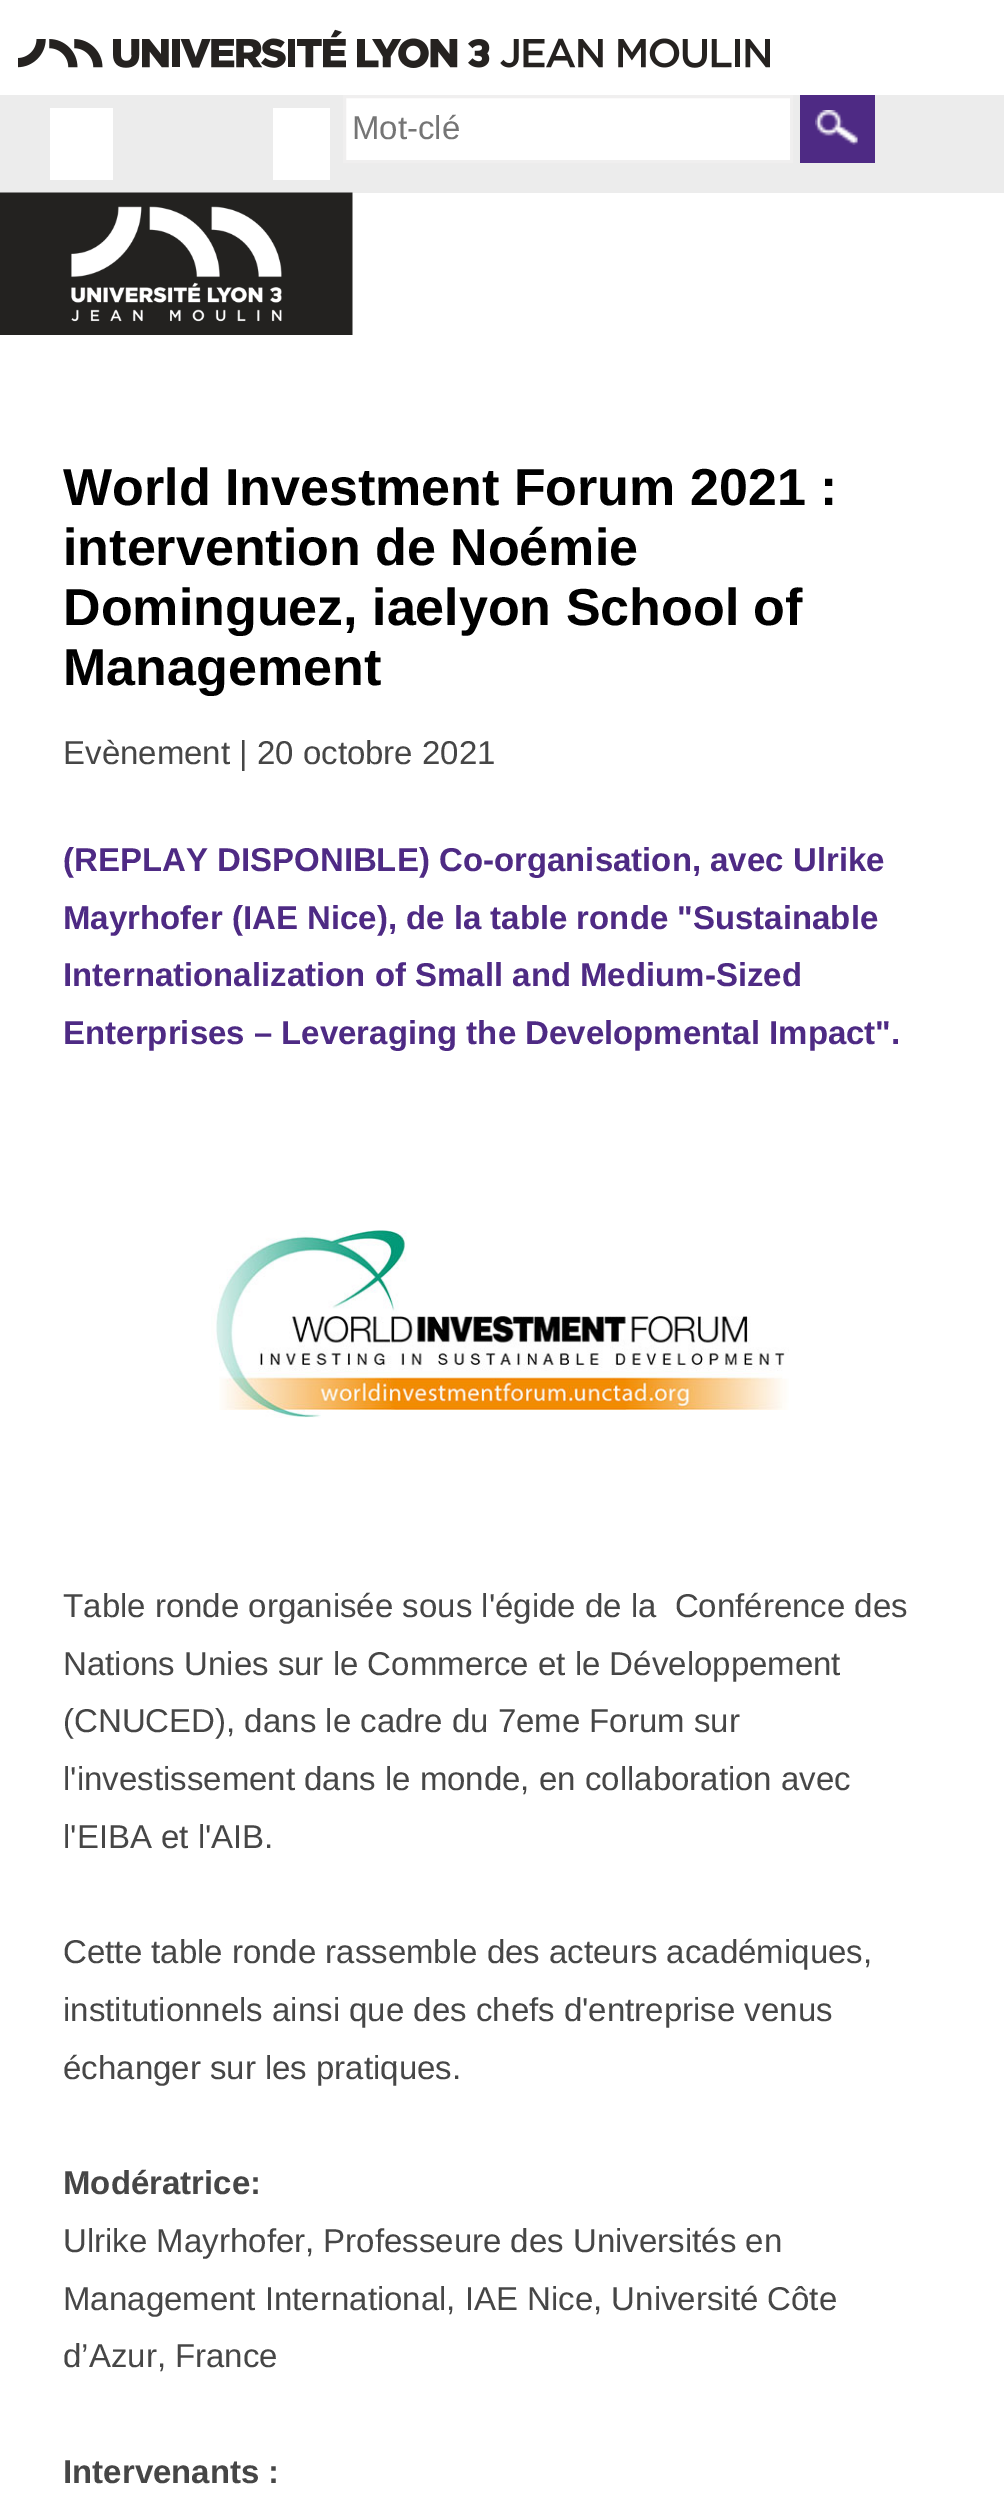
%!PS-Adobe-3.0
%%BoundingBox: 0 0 1004 2517
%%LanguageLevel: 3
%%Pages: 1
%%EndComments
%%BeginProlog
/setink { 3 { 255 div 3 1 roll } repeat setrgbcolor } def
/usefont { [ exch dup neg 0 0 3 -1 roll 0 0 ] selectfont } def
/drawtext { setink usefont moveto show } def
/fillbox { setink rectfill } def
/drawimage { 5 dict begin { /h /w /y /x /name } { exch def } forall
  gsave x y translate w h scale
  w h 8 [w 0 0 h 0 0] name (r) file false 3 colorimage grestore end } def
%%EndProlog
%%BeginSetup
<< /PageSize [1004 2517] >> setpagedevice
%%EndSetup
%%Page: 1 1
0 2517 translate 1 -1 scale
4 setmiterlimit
0 0 1004 2517 255 255 255 fillbox
0 95 1004 98 236 236 236 fillbox
(assets/img1.rgb) 18 29 752 39 drawimage
50 108 63 72 255 255 255 fillbox
273 108 57 72 255 255 255 fillbox
344.5 96.5 moveto 791.5 96.5 lineto 791.5 161.5 lineto 344.5 161.5 lineto closepath gsave fill grestore
240 239 239 setink
3 setlinewidth
stroke
(Mot-clé) 352 139 /LiberationSans-Regular 33 117 117 117 drawtext
800 95 75 68 78 42 132 fillbox
(assets/img2.rgb) 815 110 43 35 drawimage
(assets/img3.rgb) 0 192 353 143 drawimage
(World Investment Forum 2021 :) 63 505 /LiberationSans-Bold 52 0 0 0 drawtext
(intervention de Noémie) 63 565 /LiberationSans-Bold 52 0 0 0 drawtext
(Dominguez, iaelyon School of) 63 625 /LiberationSans-Bold 52 0 0 0 drawtext
(Management) 63 685 /LiberationSans-Bold 52 0 0 0 drawtext
(Evènement | 20 octobre 2021) 63 764 /LiberationSans-Regular 33 70 70 70 drawtext
(\(REPLAY DISPONIBLE\) Co-organisation, avec Ulrike) 63 871 /LiberationSans-Bold 33 78 42 132 drawtext
(Mayrhofer \(IAE Nice\), de la table ronde "Sustainable) 63 929 /LiberationSans-Bold 33 78 42 132 drawtext
(Internationalization of Small and Medium-Sized) 63 986 /LiberationSans-Bold 33 78 42 132 drawtext
(Enterprises – Leveraging the Developmental Impact".) 63 1044 /LiberationSans-Bold 33 78 42 132 drawtext
(assets/img4.rgb) 211 1230 578 188 drawimage
(Table ronde organisée sous l'égide de la  Conférence des) 63 1617 /LiberationSans-Regular 33 70 70 70 drawtext
(Nations Unies sur le Commerce et le Développement) 63 1675 /LiberationSans-Regular 33 70 70 70 drawtext
(\(CNUCED\), dans le cadre du 7eme Forum sur) 63 1732 /LiberationSans-Regular 33 70 70 70 drawtext
(l'investissement dans le monde, en collaboration avec) 63 1790 /LiberationSans-Regular 33 70 70 70 drawtext
(l'EIBA et l'AIB.) 63 1848 /LiberationSans-Regular 33 70 70 70 drawtext
(Cette table ronde rassemble des acteurs académiques,) 63 1963 /LiberationSans-Regular 33 70 70 70 drawtext
(institutionnels ainsi que des chefs d'entreprise venus) 63 2021 /LiberationSans-Regular 33 70 70 70 drawtext
(échanger sur les pratiques.) 63 2079 /LiberationSans-Regular 33 70 70 70 drawtext
(Modératrice:) 63 2194 /LiberationSans-Bold 33 70 70 70 drawtext
(Ulrike Mayrhofer, Professeure des Universités en) 63 2252 /LiberationSans-Regular 33 70 70 70 drawtext
(Management International, IAE Nice, Université Côte) 63 2310 /LiberationSans-Regular 33 70 70 70 drawtext
(d’Azur, France) 63 2367 /LiberationSans-Regular 33 70 70 70 drawtext
(Intervenants :) 63 2483 /LiberationSans-Bold 33 70 70 70 drawtext
showpage
%%EOF
